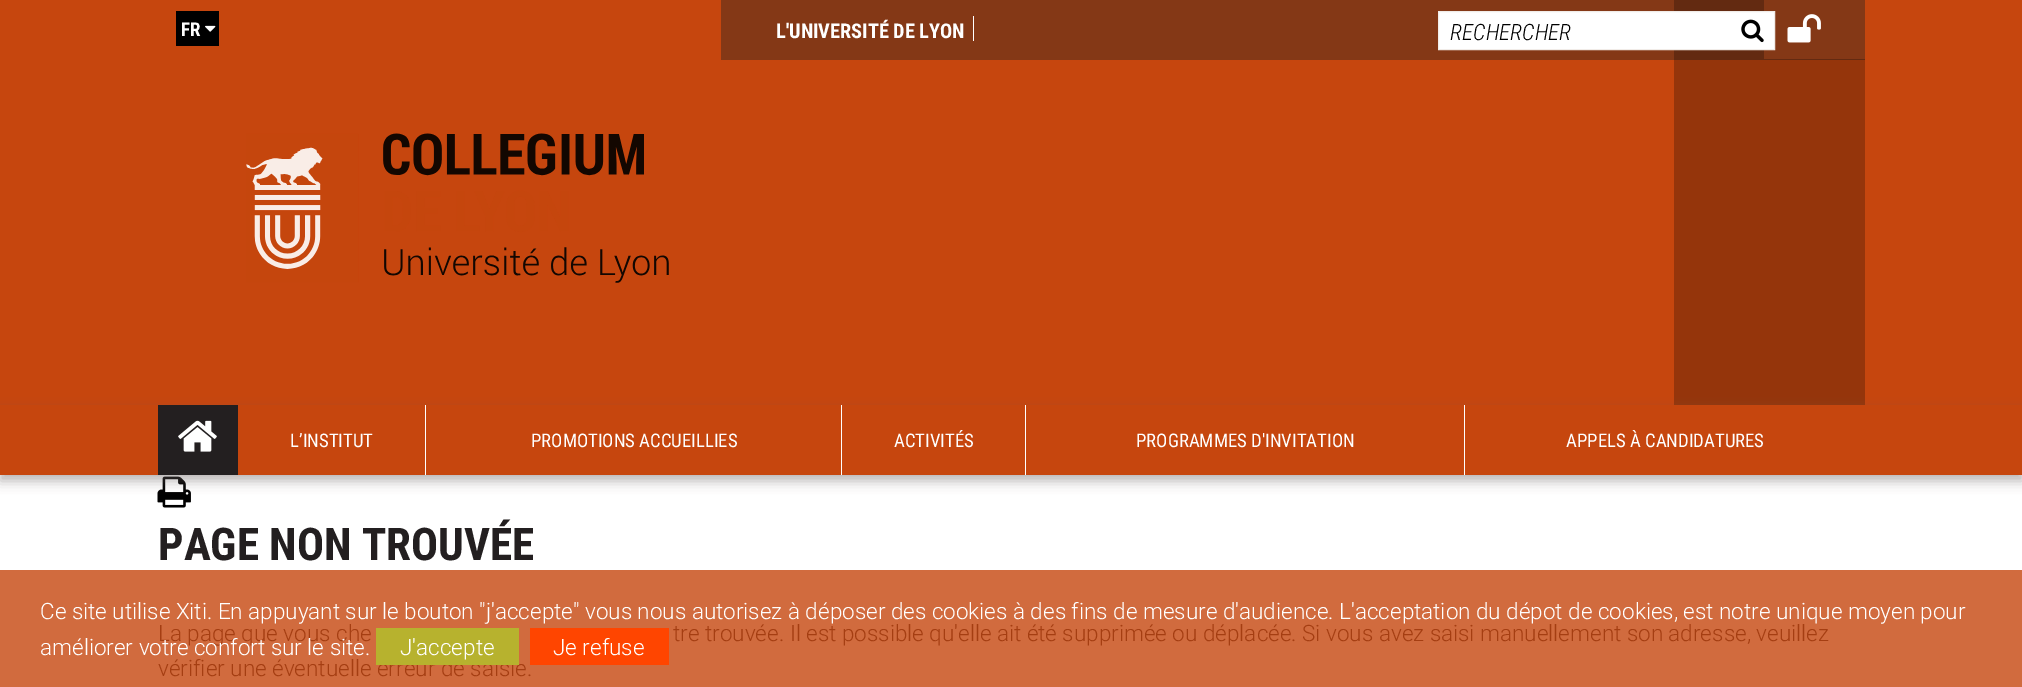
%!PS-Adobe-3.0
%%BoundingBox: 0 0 2022 687
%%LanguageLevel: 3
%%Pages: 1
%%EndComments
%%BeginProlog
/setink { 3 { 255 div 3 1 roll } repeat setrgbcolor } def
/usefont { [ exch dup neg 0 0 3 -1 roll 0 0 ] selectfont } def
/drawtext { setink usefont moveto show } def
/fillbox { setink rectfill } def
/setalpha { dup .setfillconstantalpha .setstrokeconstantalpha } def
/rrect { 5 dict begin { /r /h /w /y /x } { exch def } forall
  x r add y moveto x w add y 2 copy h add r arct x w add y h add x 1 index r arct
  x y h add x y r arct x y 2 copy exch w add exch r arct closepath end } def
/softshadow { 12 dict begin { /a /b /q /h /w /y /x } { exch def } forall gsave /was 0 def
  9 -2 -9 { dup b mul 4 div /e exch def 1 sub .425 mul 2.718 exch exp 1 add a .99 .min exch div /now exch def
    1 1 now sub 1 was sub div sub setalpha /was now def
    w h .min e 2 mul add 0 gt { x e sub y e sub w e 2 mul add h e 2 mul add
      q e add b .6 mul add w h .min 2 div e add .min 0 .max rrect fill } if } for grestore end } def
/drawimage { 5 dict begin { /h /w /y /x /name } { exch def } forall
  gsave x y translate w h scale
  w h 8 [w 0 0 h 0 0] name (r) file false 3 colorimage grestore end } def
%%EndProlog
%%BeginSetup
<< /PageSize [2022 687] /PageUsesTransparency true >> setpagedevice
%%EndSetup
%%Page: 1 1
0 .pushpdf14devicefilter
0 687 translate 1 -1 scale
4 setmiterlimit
0 0 2022 687 255 255 255 fillbox
0 570 2022 117 209 107 62 fillbox
0 0 2022 405 198 70 14 fillbox
721 0 1144 60 132 56 22 fillbox
1674 59 191 1 99 42 17 fillbox
176 11 43 35 0 0 0 fillbox
(FR) 181 36 /RobotoCondensed-Bold 19 255 255 255 drawtext
(assets/img1.rgb) 205 25 11 7 drawimage
(L'UNIVERSITÉ DE LYON) 776 38 /RobotoCondensed-Bold 20.25 255 255 255 drawtext
973 16 1 25 255 255 255 fillbox
1674 0 90 59 99 42 17 fillbox
(assets/img2.rgb) 1787 14 34 29 drawimage
1674 60 191 345 149 53 11 fillbox
255 255 255 setink
1438.5 11.5 moveto 1774.5 11.5 lineto 1774.5 49.5 lineto 1438.5 49.5 lineto closepath gsave fill grestore
241 236 232 setink
stroke
(RECHERCHER) 1450 40 /RobotoCondensed-LightItalic 22.5 0 0 0 drawtext
(assets/img3.rgb) 1741 19 23 24 drawimage
(assets/img4.rgb) 246 133 423 150 drawimage
(Ce site utilise Xiti. En appuyant sur le bouton "j'accepte" vous nous autorisez à déposer des cookies à des fins de mesure d'audience. L'acceptation du dépot de cookies, est notre unique moyen pour) 40 619 /Roboto-Light 22.5 255 255 255 drawtext
(La page que vous che) 158 641 /Roboto-Light 22.5 165 62 18 drawtext
(améliorer votre confort sur le site.) 40 655 /Roboto-Light 22.5 255 255 255 drawtext
(vérifier une éventuelle erreur de saisie.) 158 676 /Roboto-Light 22.5 165 62 18 drawtext
376 628 143 37 183 178 46 fillbox
(J'accepte) 400 655 /Roboto-Light 22.5 255 255 255 drawtext
530 628 139 37 255 69 0 fillbox
(Je refuse) 553 655 /Roboto-Light 22.5 255 255 255 drawtext
(assets/img6.rgb) 157 476 34 32 drawimage
105 95 95 setink
0 411 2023 70 0 6 0.46 softshadow
0 405 2022 70 198 70 14 fillbox
158 405 80 70 35 31 32 fillbox
(assets/img5.rgb) 178 420 39 32 drawimage
(L’INSTITUT) 290 447 /RobotoCondensed-Regular 18.75 255 255 255 drawtext
425 405 1 70 255 255 255 fillbox
(PROMOTIONS ACCUEILLIES) 531 447 /RobotoCondensed-Regular 18.75 255 255 255 drawtext
841 405 1 70 255 255 255 fillbox
(ACTIVITÉS) 894 447 /RobotoCondensed-Regular 18.75 255 255 255 drawtext
1025 405 1 70 255 255 255 fillbox
(PROGRAMMES D'INVITATION) 1136 447 /RobotoCondensed-Regular 18.75 255 255 255 drawtext
1464 405 1 70 255 255 255 fillbox
(APPELS À CANDIDATURES) 1566 447 /RobotoCondensed-Regular 18.75 255 255 255 drawtext
(PAGE NON TROUVÉE) 158 560 /RobotoCondensed-Bold 45 35 31 32 drawtext
(tre trouvée. Il est possible qu'elle ait été supprimée ou déplacée. Si vous avez saisi manuellement son adresse, veuillez) 673 641 /Roboto-Light 22.5 165 62 18 drawtext
.poppdf14devicefilter showpage
%%EOF
